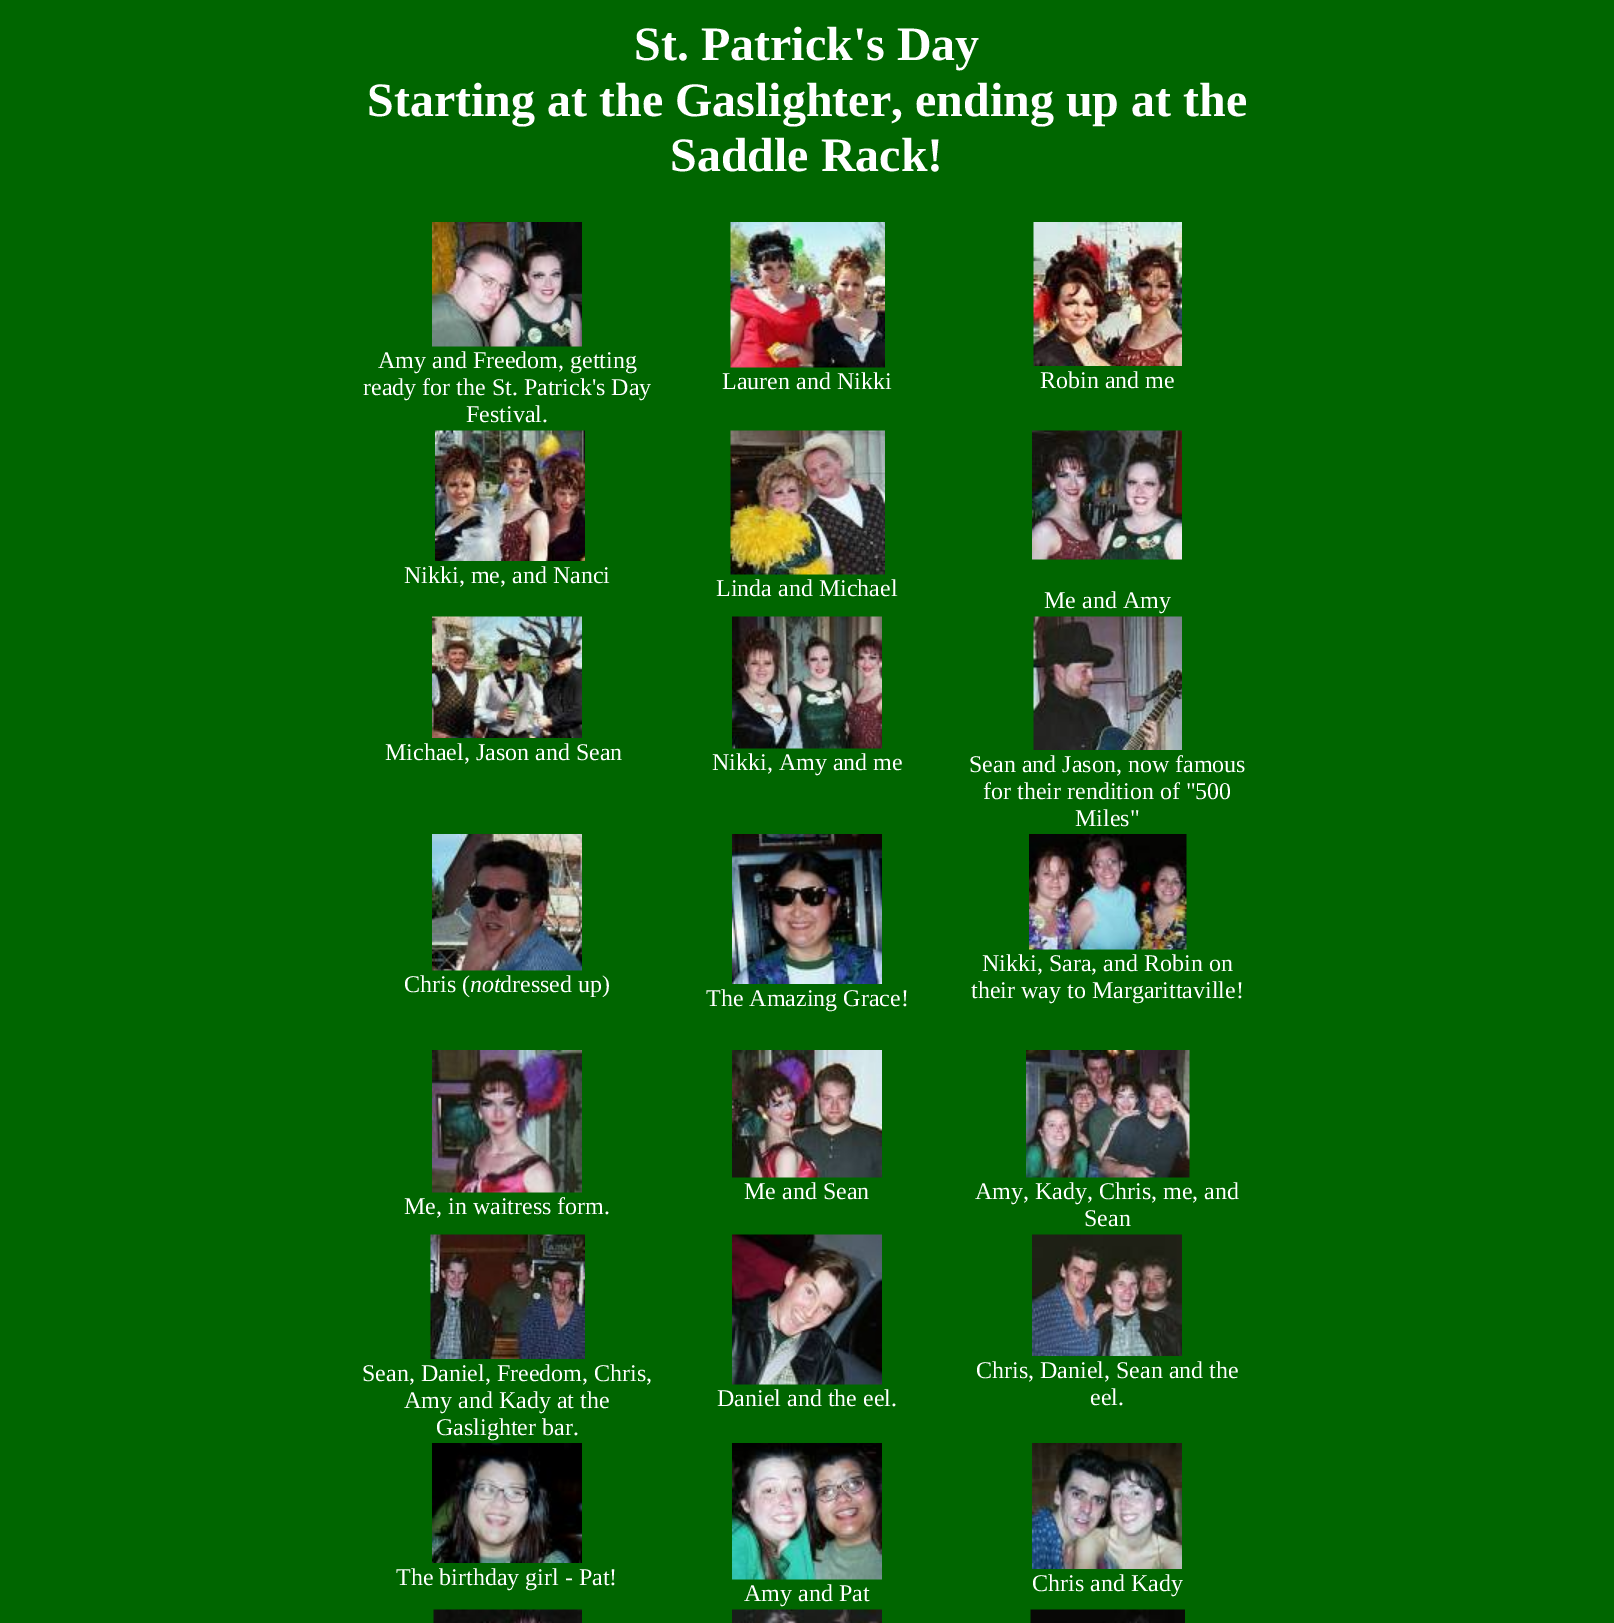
%!PS-Adobe-3.0
%%BoundingBox: 0 0 1614 1623
%%LanguageLevel: 3
%%Pages: 1
%%EndComments
%%BeginProlog
/setink { 3 { 255 div 3 1 roll } repeat setrgbcolor } def
/usefont { [ exch dup neg 0 0 3 -1 roll 0 0 ] selectfont } def
/drawtext { setink usefont moveto show } def
/fillbox { setink rectfill } def
/drawimage { 5 dict begin { /h /w /y /x /name } { exch def } forall
  gsave x y translate w h scale
  w h 8 [w 0 0 h 0 0] name (r) file false 3 colorimage grestore end } def
%%EndProlog
%%BeginSetup
<< /PageSize [1614 1623] >> setpagedevice
%%EndSetup
%%Page: 1 1
0 1623 translate 1 -1 scale
4 setmiterlimit
0 0 1614 1623 0 102 0 fillbox
(St. Patrick's Day) 634 60 /LiberationSerif-Bold 48 255 255 255 drawtext
(Starting at the Gaslighter, ending up at the) 367 116 /LiberationSerif-Bold 48 255 255 255 drawtext
(Saddle Rack!) 670 171 /LiberationSerif-Bold 48 255 255 255 drawtext
(assets/img1.rgb) 432 222 150 125 drawimage
(Amy and Freedom, getting) 378 368 /LiberationSerif-Regular 24 255 255 255 drawtext
(ready for the St. Patrick's Day) 363 395 /LiberationSerif-Regular 24 255 255 255 drawtext
(Festival.) 466 422 /LiberationSerif-Regular 24 255 255 255 drawtext
(assets/img2.rgb) 730 222 155 146 drawimage
(Lauren and Nikki) 722 389 /LiberationSerif-Regular 24 255 255 255 drawtext
(assets/img3.rgb) 1033 222 149 144 drawimage
(Robin and me) 1040 388 /LiberationSerif-Regular 24 255 255 255 drawtext
(assets/img4.rgb) 435 430 150 131 drawimage
(Nikki, me, and Nanci) 404 583 /LiberationSerif-Regular 24 255 255 255 drawtext
(assets/img5.rgb) 730 430 155 145 drawimage
(Linda and Michael) 716 596 /LiberationSerif-Regular 24 255 255 255 drawtext
(assets/img6.rgb) 1032 430 150 130 drawimage
(Me and Amy) 1044 608 /LiberationSerif-Regular 24 255 255 255 drawtext
(assets/img7.rgb) 432 616 150 122 drawimage
(Michael, Jason and Sean) 385 760 /LiberationSerif-Regular 24 255 255 255 drawtext
(assets/img8.rgb) 732 616 150 133 drawimage
(Nikki, Amy and me) 712 770 /LiberationSerif-Regular 24 255 255 255 drawtext
(assets/img9.rgb) 1033 616 149 134 drawimage
(Sean and Jason, now famous) 969 772 /LiberationSerif-Regular 24 255 255 255 drawtext
(for their rendition of "500) 983 799 /LiberationSerif-Regular 24 255 255 255 drawtext
(Miles") 1075 826 /LiberationSerif-Regular 24 255 255 255 drawtext
(assets/img10.rgb) 432 834 150 137 drawimage
(Chris \() 404 992 /LiberationSerif-Regular 24 255 255 255 drawtext
(not) 470 992 /LiberationSerif-Italic 24 255 255 255 drawtext
(dressed up\)) 500 992 /LiberationSerif-Regular 24 255 255 255 drawtext
(assets/img11.rgb) 1029 834 158 116 drawimage
(Nikki, Sara, and Robin on) 982 971 /LiberationSerif-Regular 24 255 255 255 drawtext
(their way to Margarittaville!) 971 998 /LiberationSerif-Regular 24 255 255 255 drawtext
(assets/img12.rgb) 732 834 150 150 drawimage
(The Amazing Grace!) 706 1006 /LiberationSerif-Regular 24 255 255 255 drawtext
(assets/img13.rgb) 432 1050 150 143 drawimage
(Me, in waitress form.) 404 1214 /LiberationSerif-Regular 24 255 255 255 drawtext
(assets/img14.rgb) 732 1050 150 128 drawimage
(Me and Sean) 744 1199 /LiberationSerif-Regular 24 255 255 255 drawtext
(assets/img15.rgb) 1026 1050 164 128 drawimage
(Amy, Kady, Chris, me, and) 975 1199 /LiberationSerif-Regular 24 255 255 255 drawtext
(Sean) 1084 1226 /LiberationSerif-Regular 24 255 255 255 drawtext
(assets/img16.rgb) 430 1234 155 125 drawimage
(Sean, Daniel, Freedom, Chris,) 362 1381 /LiberationSerif-Regular 24 255 255 255 drawtext
(Amy and Kady at the) 404 1408 /LiberationSerif-Regular 24 255 255 255 drawtext
(Gaslighter bar.) 436 1435 /LiberationSerif-Regular 24 255 255 255 drawtext
(assets/img17.rgb) 732 1234 150 151 drawimage
(Daniel and the eel.) 717 1406 /LiberationSerif-Regular 24 255 255 255 drawtext
(assets/img18.rgb) 1032 1234 150 122 drawimage
(Chris, Daniel, Sean and the) 976 1378 /LiberationSerif-Regular 24 255 255 255 drawtext
(eel.) 1090 1405 /LiberationSerif-Regular 24 255 255 255 drawtext
(assets/img19.rgb) 432 1443 150 120 drawimage
(The birthday girl - Pat!) 396 1585 /LiberationSerif-Regular 24 255 255 255 drawtext
(assets/img20.rgb) 732 1443 150 137 drawimage
(Amy and Pat) 744 1601 /LiberationSerif-Regular 24 255 255 255 drawtext
(assets/img21.rgb) 1032 1443 150 126 drawimage
(Chris and Kady) 1032 1591 /LiberationSerif-Regular 24 255 255 255 drawtext
(assets/img22.rgb) 433 1609 149 14 drawimage
(assets/img23.rgb) 732 1609 150 14 drawimage
(assets/img24.rgb) 1030 1609 155 14 drawimage
showpage
%%EOF
